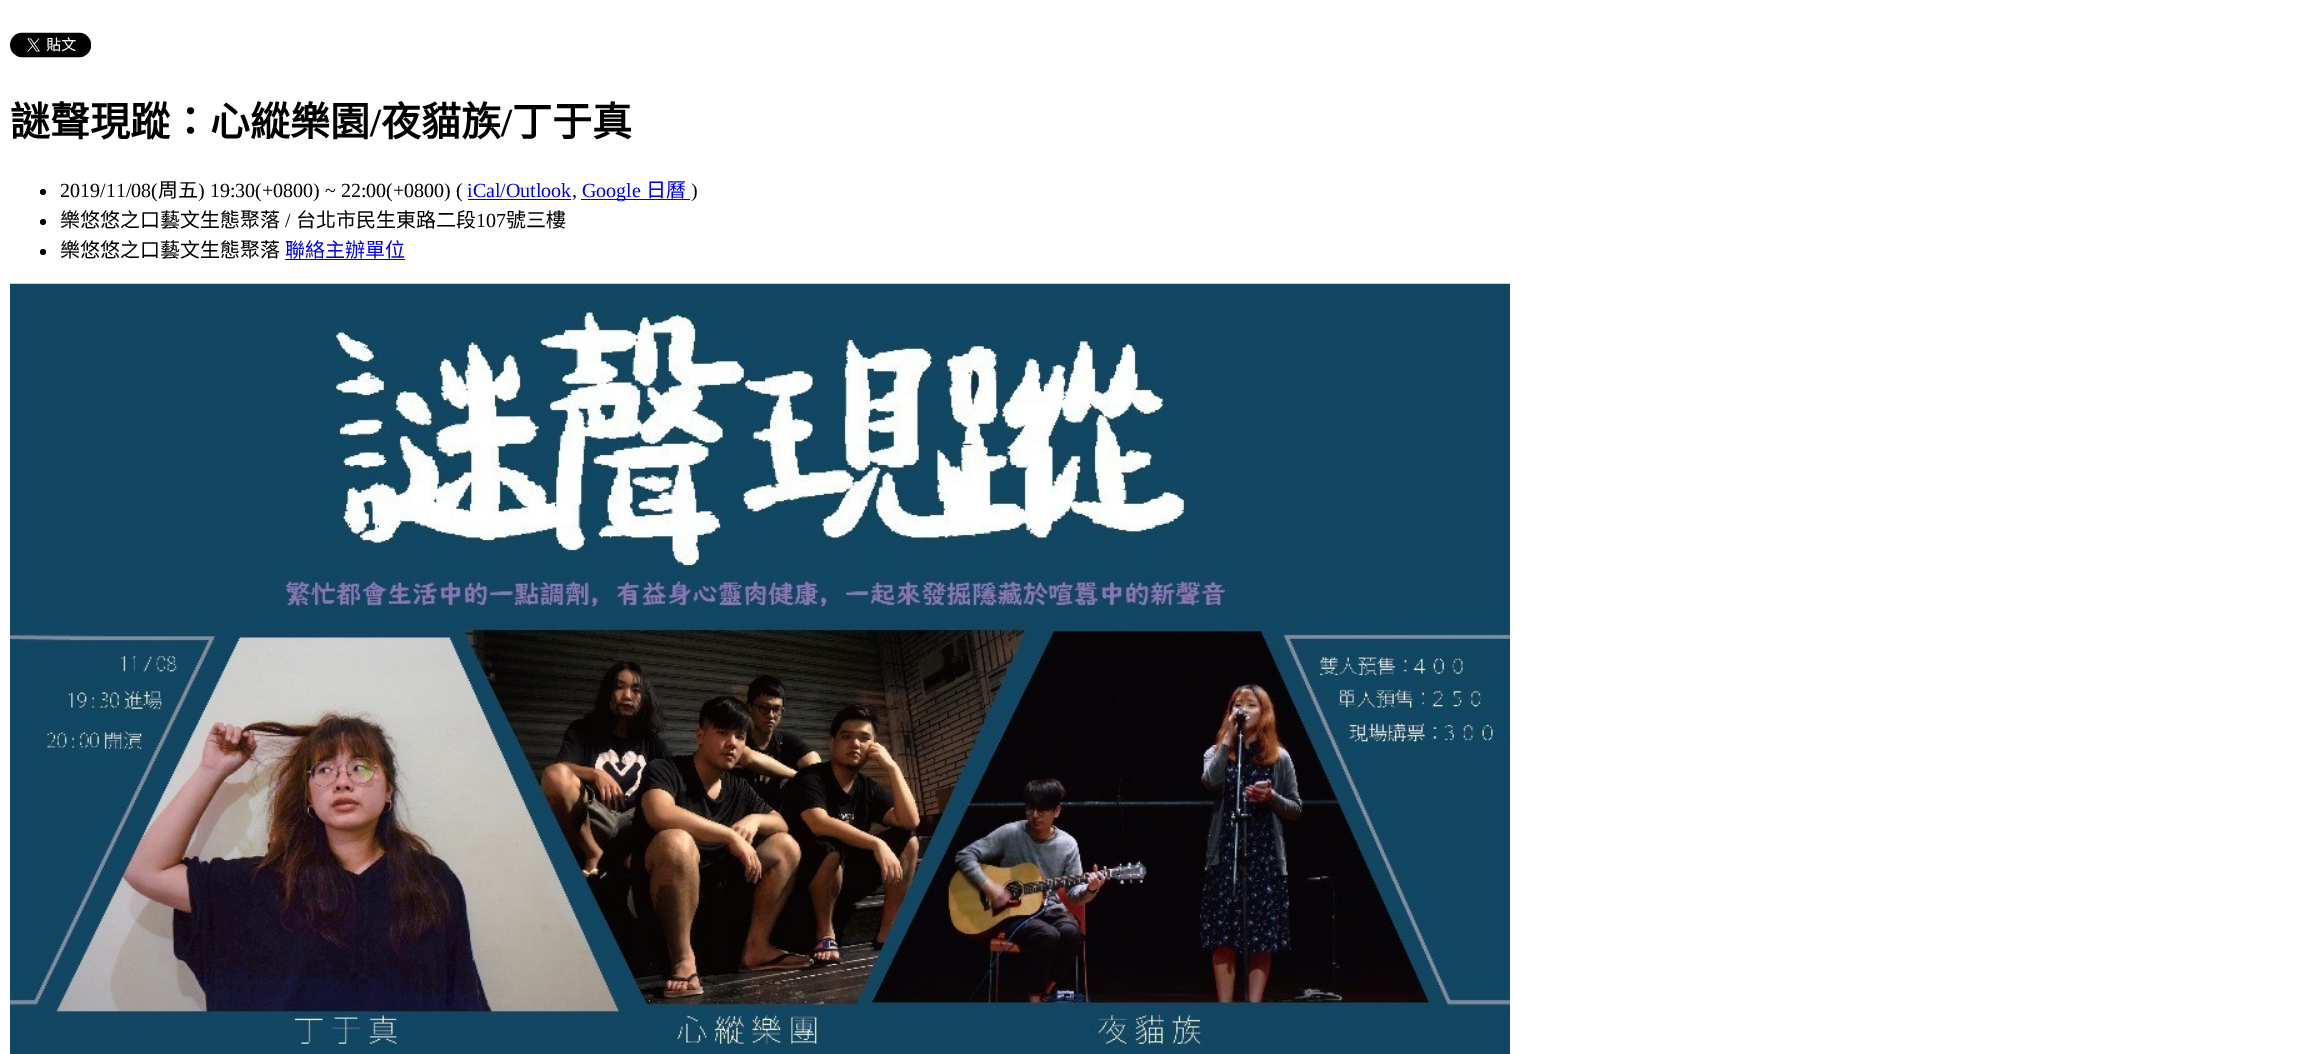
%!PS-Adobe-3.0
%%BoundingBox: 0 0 2322 1054
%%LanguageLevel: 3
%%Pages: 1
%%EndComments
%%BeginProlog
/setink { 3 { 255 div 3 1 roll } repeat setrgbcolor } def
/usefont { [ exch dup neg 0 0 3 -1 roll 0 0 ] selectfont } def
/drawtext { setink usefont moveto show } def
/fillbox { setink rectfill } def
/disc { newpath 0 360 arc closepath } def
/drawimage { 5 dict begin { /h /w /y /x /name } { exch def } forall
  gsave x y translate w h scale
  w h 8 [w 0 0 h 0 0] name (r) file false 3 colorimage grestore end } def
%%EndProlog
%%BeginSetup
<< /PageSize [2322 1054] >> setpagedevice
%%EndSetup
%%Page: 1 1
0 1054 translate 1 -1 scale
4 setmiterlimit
0 0 2322 1054 255 255 255 fillbox
(assets/img1.rgb) 10 32 82 26 drawimage
(謎聲現蹤：心縱樂園) 10 136 /NotoSansCJKTC-Bold 40 0 0 0 drawtext
(/) 370 136 /LiberationSerif-Bold 40 0 0 0 drawtext
(夜貓族) 381 136 /NotoSansCJKTC-Bold 40 0 0 0 drawtext
(/) 501 136 /LiberationSerif-Bold 40 0 0 0 drawtext
(丁于真) 512 136 /NotoSansCJKTC-Bold 40 0 0 0 drawtext
43 192 3 disc fill
(2019/11/08\() 60 197 /LiberationSerif-Regular 20 0 0 0 drawtext
(周五) 158 197 /NotoSansCJKTC-Regular 20 0 0 0 drawtext
(\) 19:30\(+0800\) ~ 22:00\(+0800\) \() 198 197 /LiberationSerif-Regular 20 0 0 0 drawtext
(iCal/Outlook) 467 197 /LiberationSerif-Regular 20 0 0 238 drawtext
581 199 109 1 0 0 238 fillbox
(Google) 582 197 /LiberationSerif-Regular 20 0 0 238 drawtext
(日曆) 646 197 /NotoSansCJKTC-Regular 20 0 0 238 drawtext
(\)) 691 197 /LiberationSerif-Regular 20 0 0 0 drawtext
(,) 572 197 /LiberationSerif-Regular 20 0 0 0 drawtext
468 199 103 1 0 0 238 fillbox
0 0 0 setink
43 222 3 disc fill
(樂悠悠之口藝文生態聚落) 60 227 /NotoSansCJKTC-Regular 20 0 0 0 drawtext
(/) 285 227 /LiberationSerif-Regular 20 0 0 0 drawtext
(台北市民生東路二段) 296 227 /NotoSansCJKTC-Regular 20 0 0 0 drawtext
(107) 476 227 /LiberationSerif-Regular 20 0 0 0 drawtext
(號三樓) 506 227 /NotoSansCJKTC-Regular 20 0 0 0 drawtext
43 252 3 disc fill
(樂悠悠之口藝文生態聚落) 60 257 /NotoSansCJKTC-Regular 20 0 0 0 drawtext
(聯絡主辦單位) 285 257 /NotoSansCJKTC-Regular 20 0 0 238 drawtext
285 259 120 1 0 0 238 fillbox
(assets/img2.rgb) 10 283 1500 771 drawimage
showpage
%%EOF
